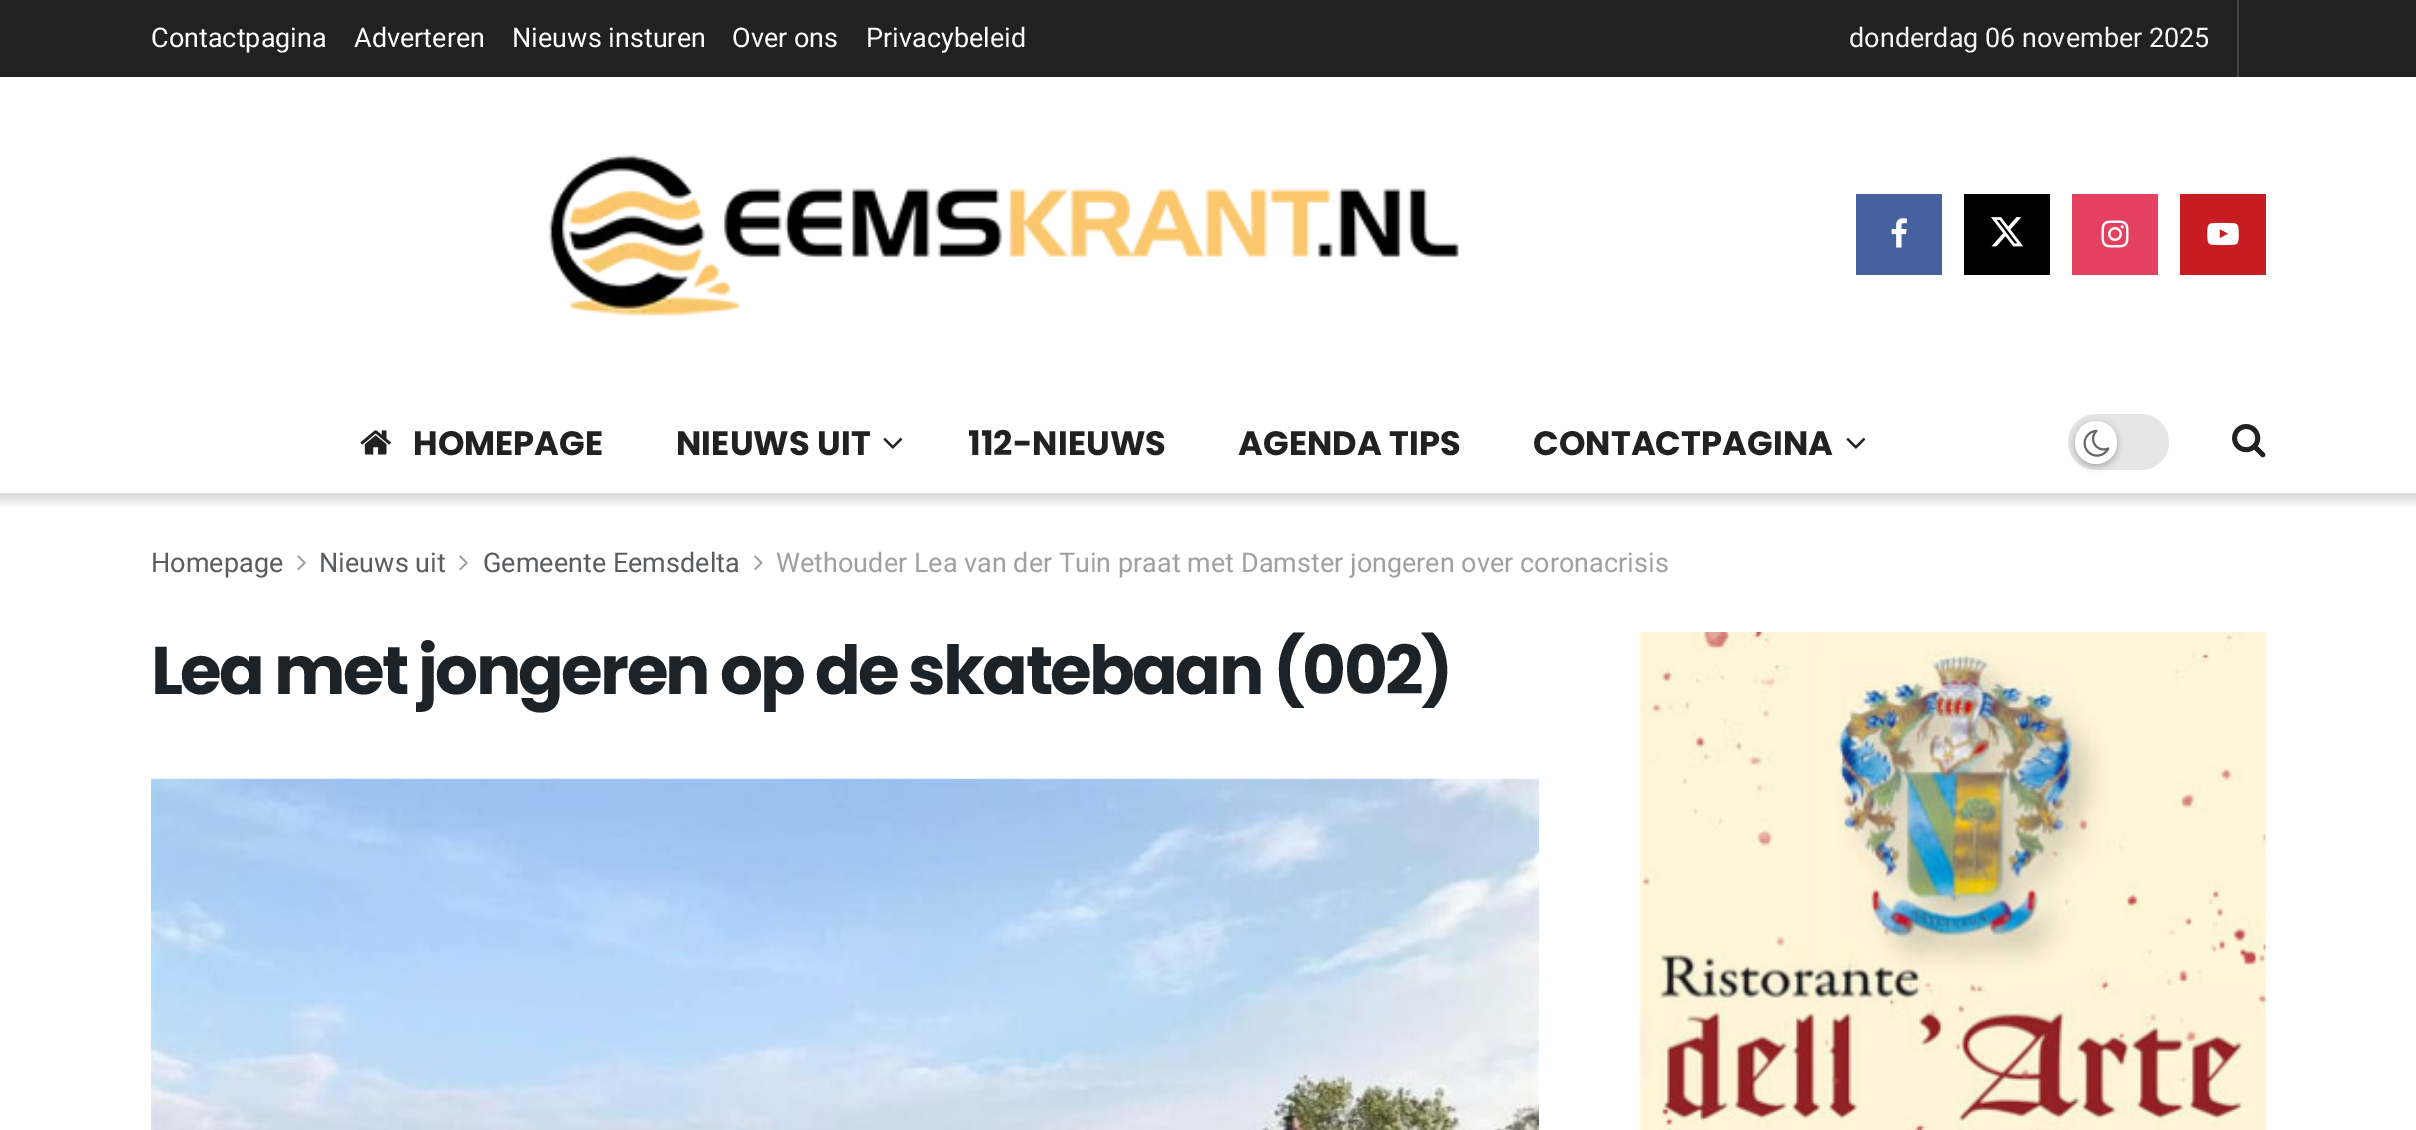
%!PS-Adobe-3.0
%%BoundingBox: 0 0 2416 1130
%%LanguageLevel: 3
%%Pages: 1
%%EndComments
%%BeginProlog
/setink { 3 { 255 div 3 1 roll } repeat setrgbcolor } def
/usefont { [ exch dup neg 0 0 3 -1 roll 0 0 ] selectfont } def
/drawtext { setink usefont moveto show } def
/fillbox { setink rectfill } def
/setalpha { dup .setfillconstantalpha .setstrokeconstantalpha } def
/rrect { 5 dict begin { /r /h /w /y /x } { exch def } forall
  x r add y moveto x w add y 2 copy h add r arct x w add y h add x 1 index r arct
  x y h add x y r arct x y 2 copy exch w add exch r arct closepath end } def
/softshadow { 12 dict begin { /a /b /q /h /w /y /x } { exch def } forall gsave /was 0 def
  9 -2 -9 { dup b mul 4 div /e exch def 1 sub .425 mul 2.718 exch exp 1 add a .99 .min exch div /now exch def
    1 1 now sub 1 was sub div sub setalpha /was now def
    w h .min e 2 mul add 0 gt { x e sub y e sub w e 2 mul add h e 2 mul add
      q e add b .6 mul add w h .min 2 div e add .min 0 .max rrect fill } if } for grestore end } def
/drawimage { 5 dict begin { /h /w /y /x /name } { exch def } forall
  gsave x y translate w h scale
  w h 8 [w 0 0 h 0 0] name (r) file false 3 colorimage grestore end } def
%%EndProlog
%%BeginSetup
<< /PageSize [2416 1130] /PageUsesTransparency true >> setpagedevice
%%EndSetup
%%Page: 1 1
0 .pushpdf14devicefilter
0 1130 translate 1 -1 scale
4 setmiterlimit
0 0 2416 1130 255 255 255 fillbox
0 0 2416 77 33 33 33 fillbox
(Contactpagina) 151 47 /Heebo-Regular 27 255 255 255 drawtext
(Adverteren) 354 47 /Heebo-Regular 27 255 255 255 drawtext
(Nieuws insturen) 512 47 /Heebo-Regular 27 255 255 255 drawtext
(Over ons) 732 47 /Heebo-Regular 27 255 255 255 drawtext
(Privacybeleid) 866 47 /Heebo-Regular 27 255 255 255 drawtext
2237 0 2 77 66 66 66 fillbox
(donderdag 06 november 2025) 1849 47 /Heebo-Regular 27 245 245 245 drawtext
(assets/img1.rgb) 548 154 911 162 drawimage
1856 194 86 81 69 98 159 fillbox
(assets/img2.rgb) 1891 218 16 30 drawimage
1964 194 86 81 0 0 0 fillbox
(assets/img3.rgb) 1991 217 33 30 drawimage
2072 194 86 81 228 64 95 fillbox
(assets/img4.rgb) 2101 220 28 28 drawimage
2180 194 86 81 198 29 35 fillbox
(assets/img5.rgb) 2207 222 32 24 drawimage
(assets/img6.rgb) 360 430 31 25 drawimage
(HOMEPAGE) 413 455 /Poppins-Bold 33.75 33 33 33 drawtext
(NIEUWS UIT) 676 455 /Poppins-Bold 33.75 33 33 33 drawtext
(assets/img7.rgb) 883 437 20 12 drawimage
(112-NIEUWS) 968 455 /Poppins-Bold 33.75 33 33 33 drawtext
(AGENDA TIPS) 1238 455 /Poppins-Bold 33.75 33 33 33 drawtext
(CONTACTPAGINA) 1533 455 /Poppins-Bold 33.75 33 33 33 drawtext
(assets/img7.rgb) 1846 437 20 12 drawimage
230 230 230 setink
2068 414 101 56 28 rrect fill
0 0 0 setink
2075 423 42 43 21 3.5 0.3 softshadow
255 255 255 setink
2075 421 42 43 21 rrect fill
(assets/img8.rgb) 2083 429 27 28 drawimage
(assets/img9.rgb) 2232 424 34 34 drawimage
gsave 0 493 moveto 2416 493 lineto 2416 508 lineto 0 508 lineto closepath clip newpath
<< /ShadingType 2 /ColorSpace /DeviceRGB /Coords [1208 493 1208 509] /Extend [true true] /Function << /FunctionType 2 /Domain [0 1] /C0 [0.851 0.851 0.851] /C1 [1 1 1] /N 1 >> >> shfill grestore
(Homepage) 151 572 /Heebo-Regular 27 89 92 95 drawtext
(assets/img10.rgb) 297 555 9 16 drawimage
(Nieuws uit) 319 572 /Heebo-Regular 27 89 92 95 drawtext
(assets/img10.rgb) 459 555 9 16 drawimage
(Gemeente Eemsdelta) 483 572 /Heebo-Regular 27 89 92 95 drawtext
(assets/img11.rgb) 754 555 9 16 drawimage
(Wethouder Lea van der Tuin praat met Damster jongeren over coronacrisis) 776 572 /Heebo-Regular 27 160 160 160 drawtext
/Poppins-Bold 67.5 usefont
27 34 40 setink
151 694 moveto -2.7 0 (Lea met jongeren op de skatebaan \(002\)) ashow
(assets/img12.rgb) 150 778 1389 352 drawimage
(assets/img13.rgb) 1639 632 627 498 drawimage
.poppdf14devicefilter showpage
%%EOF
